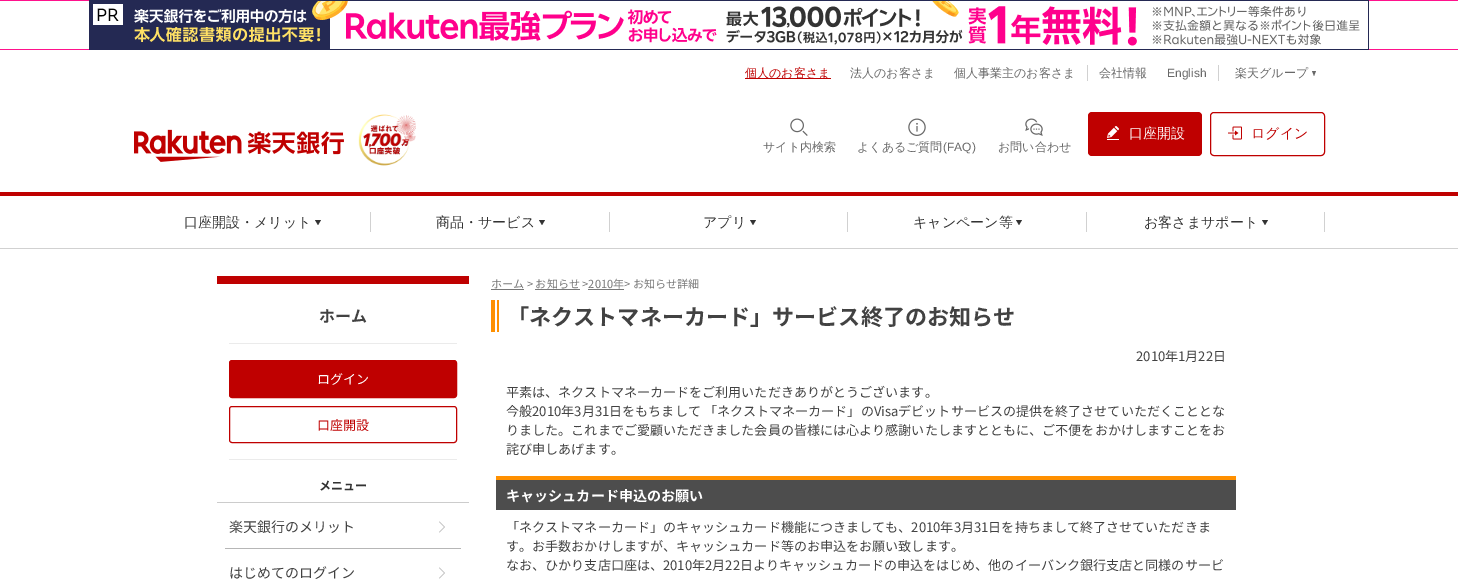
%!PS-Adobe-3.0
%%BoundingBox: 0 0 1458 580
%%LanguageLevel: 3
%%Pages: 1
%%EndComments
%%BeginProlog
/setink { 3 { 255 div 3 1 roll } repeat setrgbcolor } def
/usefont { [ exch dup neg 0 0 3 -1 roll 0 0 ] selectfont } def
/drawtext { setink usefont moveto show } def
/fillbox { setink rectfill } def
/rrect { 5 dict begin { /r /h /w /y /x } { exch def } forall
  x r add y moveto x w add y 2 copy h add r arct x w add y h add x 1 index r arct
  x y h add x y r arct x y 2 copy exch w add exch r arct closepath end } def
/drawimage { 5 dict begin { /h /w /y /x /name } { exch def } forall
  gsave x y translate w h scale
  w h 8 [w 0 0 h 0 0] name (r) file false 3 colorimage grestore end } def
%%EndProlog
%%BeginSetup
<< /PageSize [1458 580] >> setpagedevice
%%EndSetup
%%Page: 1 1
0 580 translate 1 -1 scale
4 setmiterlimit
0 0 1458 580 255 255 255 fillbox
0 0 1458 1 255 18 140 fillbox
0 49 1458 1 255 18 140 fillbox
(assets/img1.rgb) 89 0 1280 50 drawimage
745 78 86 1 191 0 0 fillbox
(個人のお客さま) 745 77 /WenQuanYiZenHei-Medium 12 191 0 0 drawtext
(法人のお客さま) 850 77 /WenQuanYiZenHei-Medium 12 104 104 104 drawtext
(個人事業主のお客さま) 954 77 /WenQuanYiZenHei-Medium 12 104 104 104 drawtext
1087 65 1 16 209 209 209 fillbox
(会社情報) 1099 77 /WenQuanYiZenHei-Medium 12 104 104 104 drawtext
(English) 1167 77 /LiberationSans-Regular 12 104 104 104 drawtext
1218 65 1 16 209 209 209 fillbox
(楽天グループ) 1235 77 /WenQuanYiZenHei-Medium 12 104 104 104 drawtext
1312 71 moveto 1316 71 lineto 1314 76 lineto closepath fill
0 192 1458 4 191 0 0 fillbox
(assets/img2.rgb) 134 129 210 33 drawimage
(assets/img3.rgb) 358 114 58 52 drawimage
1088 112 114 44 4 rrect fill
(assets/img4.rgb) 1107 126 12 14 drawimage
(口座開設) 1129 138 /WenQuanYiZenHei-Medium 14 255 255 255 drawtext
191 0 0 setink
1210.5 112.5 114 43 3.5 rrect stroke
(assets/img5.rgb) 1228 126 14 14 drawimage
(ログイン) 1251 138 /WenQuanYiZenHei-Medium 14 191 0 0 drawtext
(assets/img6.rgb) 790 118 18 18 drawimage
(サイト内検索) 763 151 /WenQuanYiZenHei-Medium 12 104 104 104 drawtext
(assets/img7.rgb) 908 118 18 18 drawimage
(よくあるご質問) 857 151 /WenQuanYiZenHei-Medium 12 104 104 104 drawtext
(\(FAQ\)) 943 151 /LiberationSans-Regular 12 104 104 104 drawtext
(assets/img8.rgb) 1025 118 18 18 drawimage
(お問い合わせ) 998 151 /WenQuanYiZenHei-Medium 12 104 104 104 drawtext
0 248 1458 1 209 209 209 fillbox
(口座開設・メリット) 184 227 /WenQuanYiZenHei-Medium 14 51 51 51 drawtext
315 220 moveto 321 220 lineto 318 225 lineto closepath fill
370 212 1 20 209 209 209 fillbox
(商品・サービス) 436 227 /WenQuanYiZenHei-Medium 14 51 51 51 drawtext
539 220 moveto 545 220 lineto 542 225 lineto closepath fill
609 212 1 20 209 209 209 fillbox
(アプリ) 703 227 /WenQuanYiZenHei-Medium 14 51 51 51 drawtext
750 220 moveto 756 220 lineto 753 225 lineto closepath fill
847 212 1 20 209 209 209 fillbox
(キャンペーン等) 913 227 /WenQuanYiZenHei-Medium 14 51 51 51 drawtext
1016 220 moveto 1022 220 lineto 1019 225 lineto closepath fill
1086 212 1 20 209 209 209 fillbox
(お客さまサポート) 1144 227 /WenQuanYiZenHei-Medium 14 51 51 51 drawtext
1262 220 moveto 1268 220 lineto 1265 225 lineto closepath fill
1324 212 1 20 209 209 209 fillbox
217 276 252 8 191 0 0 fillbox
(ホーム) 319 322 /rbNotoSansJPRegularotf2-Regular 16 66 66 66 drawtext
229 343 228 1 235 235 235 fillbox
191 0 0 setink
229.5 360.5 227 37 2.5 rrect gsave fill grestore
stroke
(ログイン) 317 384 /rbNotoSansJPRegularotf-Regular 13 255 255 255 drawtext
191 0 0 setink
229.5 406.5 227 36 2.5 rrect stroke
(口座開設) 317 430 /rbNotoSansJPRegularotf-Regular 13 191 0 0 drawtext
229 459 228 1 235 235 235 fillbox
217 502 252 1 204 204 204 fillbox
(メニュー) 319 490 /rbNotoSansJPRegularotf2-Regular 12 51 51 51 drawtext
(楽天銀行のメリット) 229 532 /rbNotoSansJPRegularotf-Regular 14 66 66 66 drawtext
(assets/img9.rgb) 439 521 6 12 drawimage
225 548 236 1 182 182 182 fillbox
(はじめてのログイン) 229 578 /rbNotoSansJPRegularotf-Regular 14 66 66 66 drawtext
(assets/img9.rgb) 439 567 6 12 drawimage
(ホーム > お知らせ >2010年> お知らせ詳細) 491 288 /rbNotoSansJPRegularotf-Regular 11.1 120 120 120 drawtext
491 289 33 1 120 120 120 fillbox
535 289 45 1 120 120 120 fillbox
588 289 36 1 120 120 120 fillbox
491 300 4 32 255 144 0 fillbox
497 300 2 32 255 144 0 fillbox
(「ネクストマネーカード」サービス終了のお知らせ) 507 325 /rbNotoSansJPRegularotf2-Regular 22.1 66 66 66 drawtext
(2010年1月22日) 1136 361 /rbNotoSansJPRegularotf-Regular 13.08 66 66 66 drawtext
(平素は、ネクストマネーカードをご利用いただきありがとうございます。) 506 397 /rbNotoSansJPRegularotf-Regular 13.08 66 66 66 drawtext
(今般2010年3月31日をもちまして 「ネクストマネーカード」のVisaデビットサービスの提供を終了させていただくこととな) 506 416 /rbNotoSansJPRegularotf-Regular 13.08 66 66 66 drawtext
(りました。これまでご愛顧いただきました会員の皆様には心より感謝いたしますとともに、ご不便をおかけしますことをお) 506 435 /rbNotoSansJPRegularotf-Regular 13.08 66 66 66 drawtext
(詫び申しあげます。) 506 454 /rbNotoSansJPRegularotf-Regular 13.08 66 66 66 drawtext
496 480 740 30 77 77 77 fillbox
496 476 740 4 255 144 0 fillbox
(キャッシュカード申込のお願い) 506 501 /rbNotoSansJPRegularotf2-Regular 14.1 255 255 255 drawtext
(「ネクストマネーカード」のキャッシュカード機能につきましても、2010年3月31日を持ちまして終了させていただきま) 506 532 /rbNotoSansJPRegularotf-Regular 13.08 66 66 66 drawtext
(す。お手数おかけしますが、キャッシュカード等のお申込をお願い致します。) 506 551 /rbNotoSansJPRegularotf-Regular 13.08 66 66 66 drawtext
(なお、ひかり支店口座は、2010年2月22日よりキャッシュカードの申込をはじめ、他のイーバンク銀行支店と同様のサービ) 506 570 /rbNotoSansJPRegularotf-Regular 13.08 66 66 66 drawtext
showpage
%%EOF
